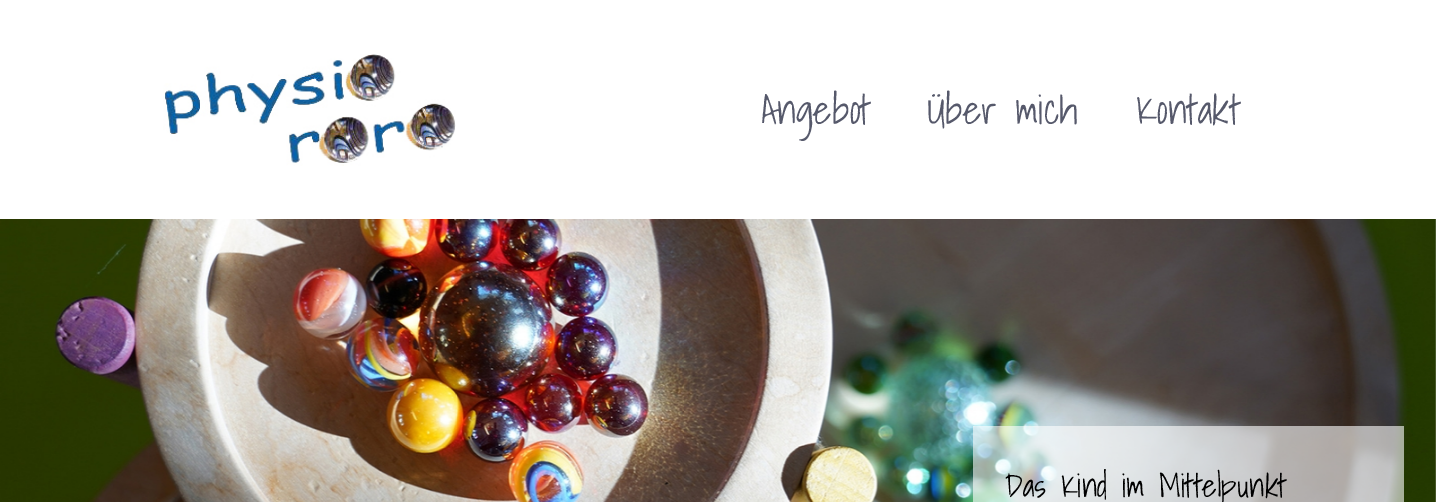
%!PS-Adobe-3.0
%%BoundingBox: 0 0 1436 502
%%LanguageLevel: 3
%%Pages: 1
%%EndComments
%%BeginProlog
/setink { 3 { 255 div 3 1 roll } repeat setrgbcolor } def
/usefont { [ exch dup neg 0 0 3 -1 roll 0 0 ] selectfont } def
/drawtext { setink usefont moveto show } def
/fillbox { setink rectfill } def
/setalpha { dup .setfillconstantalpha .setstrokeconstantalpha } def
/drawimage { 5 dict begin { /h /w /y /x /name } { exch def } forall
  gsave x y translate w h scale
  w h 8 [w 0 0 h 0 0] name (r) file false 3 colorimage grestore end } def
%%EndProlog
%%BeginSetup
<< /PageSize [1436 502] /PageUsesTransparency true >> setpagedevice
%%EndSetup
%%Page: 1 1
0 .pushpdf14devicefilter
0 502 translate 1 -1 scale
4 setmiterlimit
0 0 1436 502 255 255 255 fillbox
(assets/img1.rgb) 163 54 293 112 drawimage
(Angebot) 761 124 /ShadowsIntoLight-Light 40 86 89 107 drawtext
(Über mich) 927 124 /ShadowsIntoLight-Light 40 86 89 107 drawtext
(Kontakt) 1136 124 /ShadowsIntoLight-Light 40 86 89 107 drawtext
(assets/img2.rgb) 0 219 1436 283 drawimage
0.6 setalpha
973 426 431 76 255 255 255 fillbox
1 setalpha
(Das Kind im Mittelpunkt) 1005 497 /ShadowsIntoLight-Light 32 0 0 0 drawtext
.poppdf14devicefilter showpage
%%EOF
